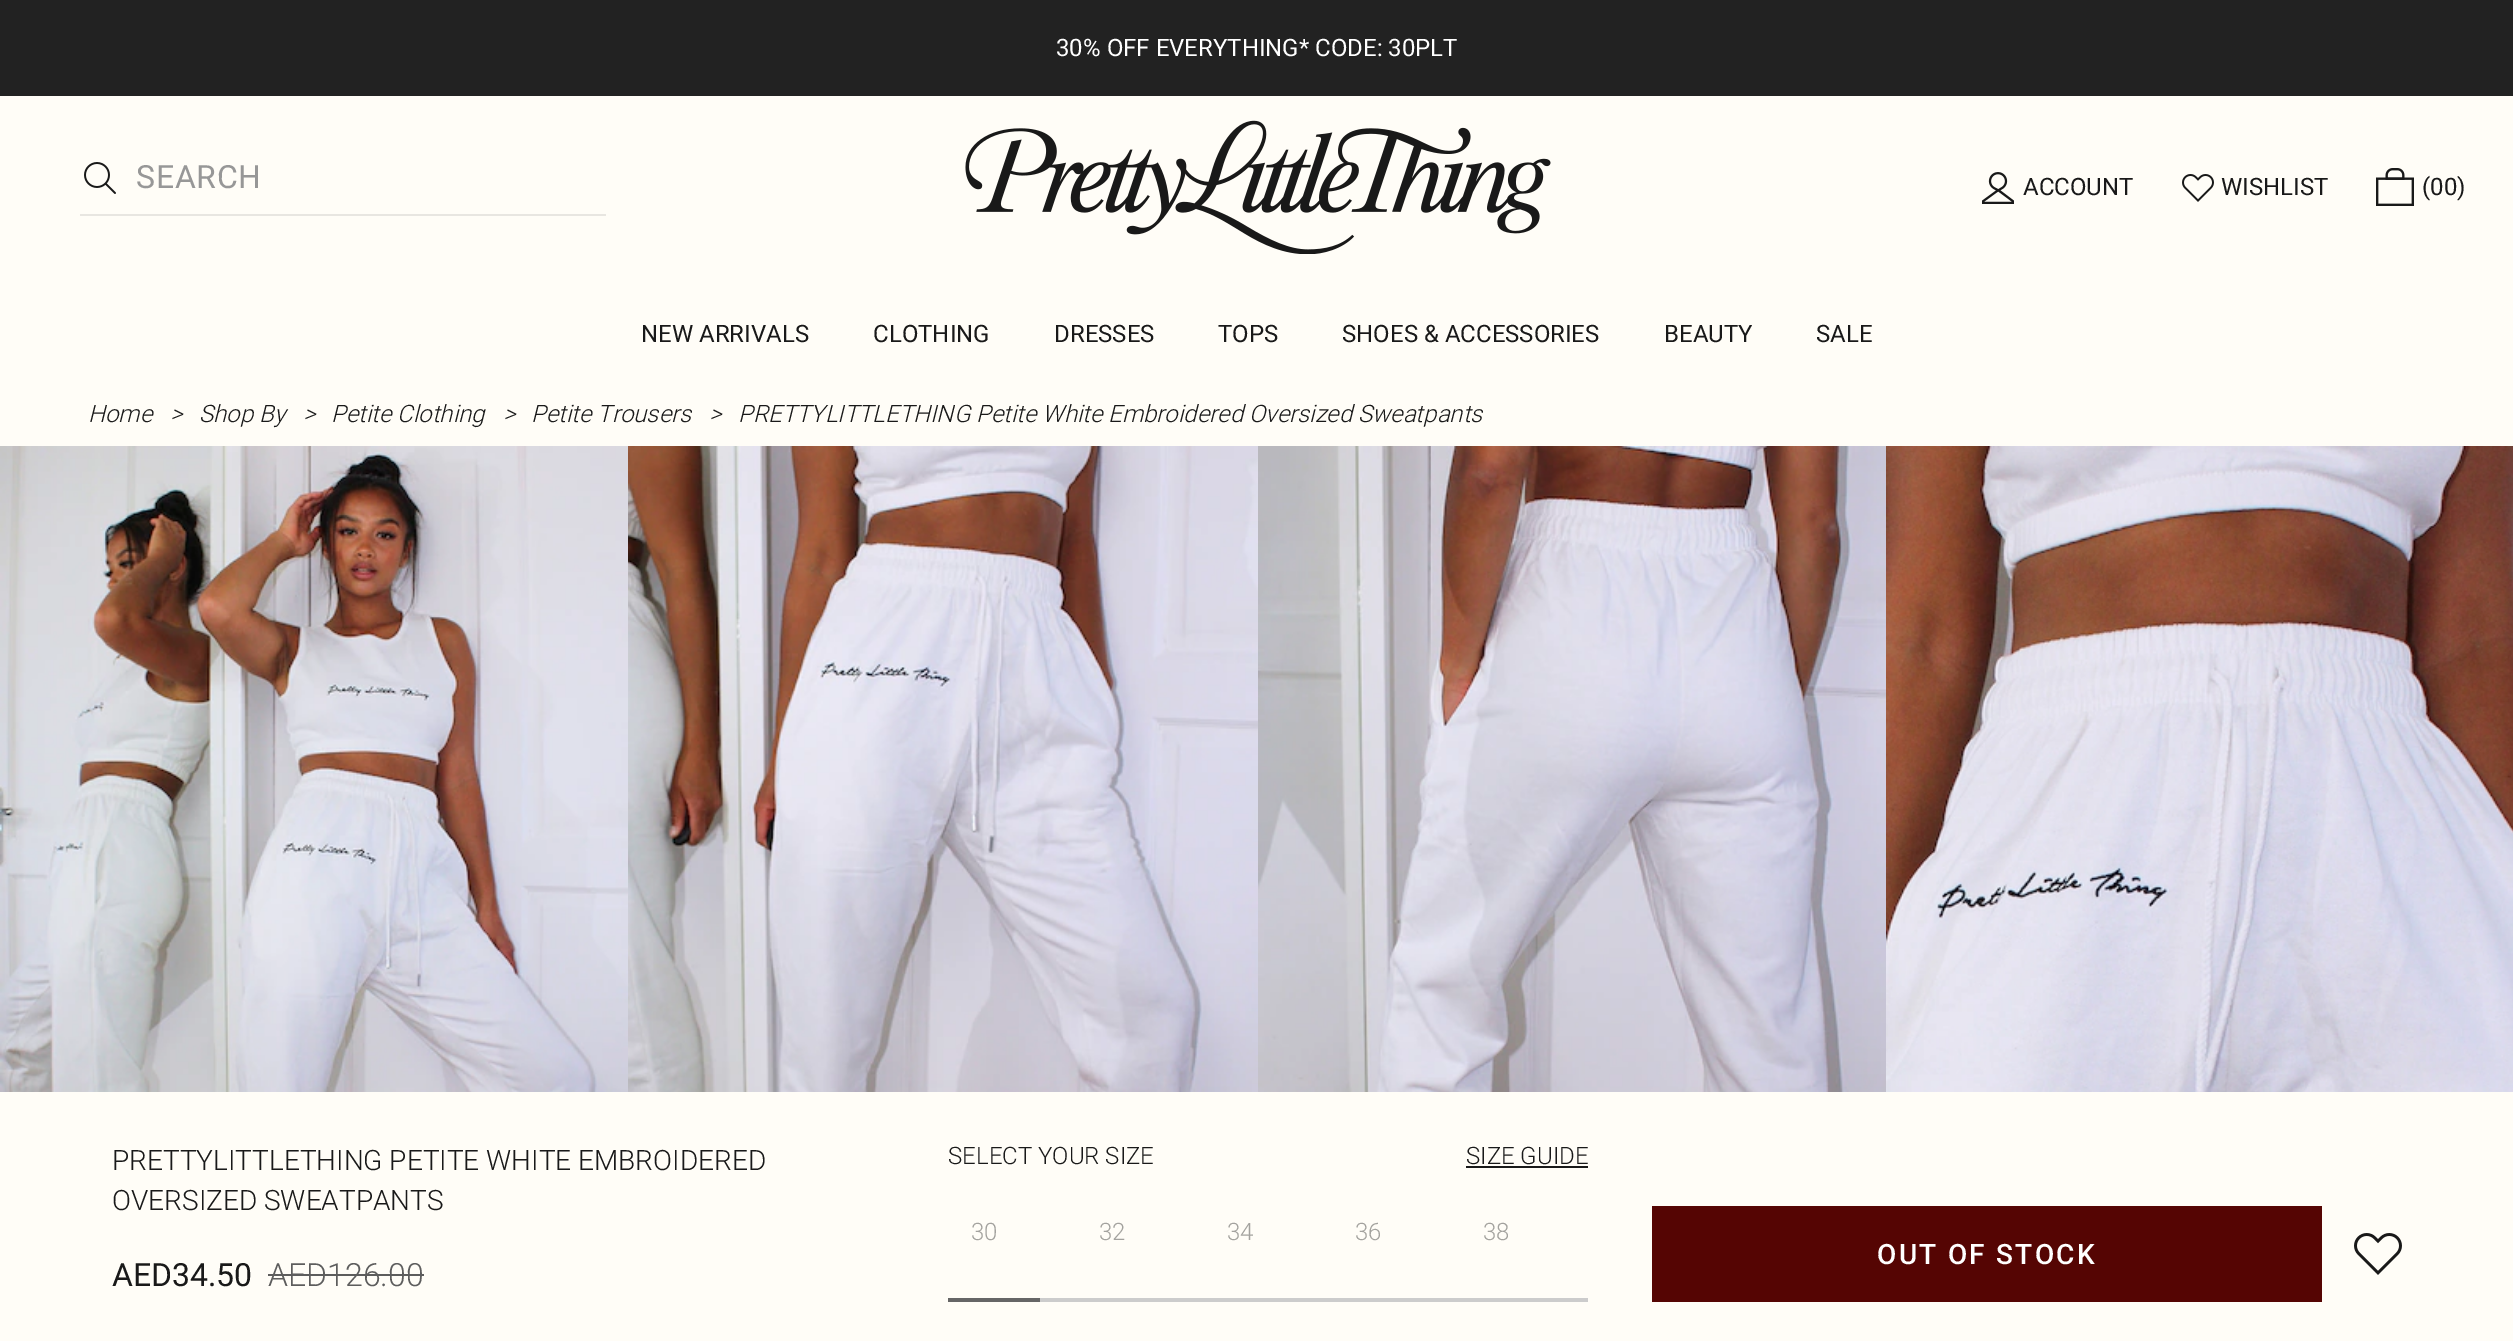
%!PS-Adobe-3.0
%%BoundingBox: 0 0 2513 1341
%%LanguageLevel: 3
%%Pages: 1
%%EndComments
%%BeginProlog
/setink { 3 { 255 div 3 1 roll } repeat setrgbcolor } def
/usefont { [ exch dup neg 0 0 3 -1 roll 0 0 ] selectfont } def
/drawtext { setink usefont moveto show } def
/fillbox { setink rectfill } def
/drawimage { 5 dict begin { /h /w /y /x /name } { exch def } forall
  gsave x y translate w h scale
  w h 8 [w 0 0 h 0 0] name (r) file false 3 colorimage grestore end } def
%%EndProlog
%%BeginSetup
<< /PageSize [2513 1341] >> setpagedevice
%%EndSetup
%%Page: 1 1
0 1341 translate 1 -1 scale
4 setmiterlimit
0 0 2513 1341 255 253 247 fillbox
0 0 2513 96 34 34 34 fillbox
(30% OFF EVERYTHING* CODE: 30PLT) 1056 56 /Roboto-Regular 24 255 255 255 drawtext
80 214 526 2 232 230 225 fillbox
(assets/img1.rgb) 84 162 32 32 drawimage
/Roboto-Regular 32 usefont
151 151 151 setink
136 188 moveto 0.75 0 (SEARCH) ashow
(assets/img2.rgb) 965 120 586 134 drawimage
(assets/img3.rgb) 1982 172 32 32 drawimage
(ACCOUNT) 2023 195 /Roboto-Regular 24 25 25 25 drawtext
(assets/img4.rgb) 2182 174 32 28 drawimage
(WISHLIST) 2221 195 /Roboto-Regular 24 25 25 25 drawtext
(assets/img5.rgb) 2376 168 38 38 drawimage
(\(00\)) 2422 195 /Roboto-Regular 24 25 25 25 drawtext
(NEW ARRIVALS) 641 342 /Roboto-Regular 24 25 25 25 drawtext
(CLOTHING) 873 342 /Roboto-Regular 24 25 25 25 drawtext
(DRESSES) 1054 342 /Roboto-Regular 24 25 25 25 drawtext
(TOPS) 1218 342 /Roboto-Regular 24 25 25 25 drawtext
(SHOES & ACCESSORIES) 1342 342 /Roboto-Regular 24 25 25 25 drawtext
(BEAUTY) 1664 342 /Roboto-Regular 24 25 25 25 drawtext
(SALE) 1816 342 /Roboto-Regular 24 25 25 25 drawtext
(Home) 88 422 /Roboto-LightItalic 24 25 25 25 drawtext
(>) 170 422 /Roboto-LightItalic 24 25 25 25 drawtext
(Shop By) 199 422 /Roboto-LightItalic 24 25 25 25 drawtext
(>) 303 422 /Roboto-LightItalic 24 25 25 25 drawtext
(Petite Clothing) 331 422 /Roboto-LightItalic 24 25 25 25 drawtext
(>) 503 422 /Roboto-LightItalic 24 25 25 25 drawtext
(Petite Trousers) 531 422 /Roboto-LightItalic 24 25 25 25 drawtext
(>) 709 422 /Roboto-LightItalic 24 25 25 25 drawtext
(PRETTYLITTLETHING Petite White Embroidered Oversized Sweatpants) 738 422 /Roboto-LightItalic 24 25 25 25 drawtext
(assets/img6.rgb) 0 446 628 646 drawimage
(assets/img7.rgb) 628 446 630 646 drawimage
(assets/img8.rgb) 1258 446 628 646 drawimage
(assets/img9.rgb) 1886 446 627 646 drawimage
(PRETTYLITTLETHING PETITE WHITE EMBROIDERED) 112 1170 /Roboto-Light 28 25 25 25 drawtext
(OVERSIZED SWEATPANTS) 112 1210 /Roboto-Light 28 25 25 25 drawtext
(AED34.50) 112 1286 /Roboto-Regular 32 25 25 25 drawtext
(AED126.00) 268 1286 /Roboto-Light 32 93 93 93 drawtext
268 1274 156 2 93 93 93 fillbox
(SELECT YOUR SIZE) 948 1164 /Roboto-Light 24 25 25 25 drawtext
(SIZE GUIDE) 1466 1164 /Roboto-Light 24 25 25 25 drawtext
1466 1166 122 2 25 25 25 fillbox
(30) 971 1240 /Roboto-Light 24 163 162 158 drawtext
(32) 1099 1240 /Roboto-Light 24 163 162 158 drawtext
(34) 1227 1240 /Roboto-Light 24 163 162 158 drawtext
(36) 1355 1240 /Roboto-Light 24 163 162 158 drawtext
(38) 1483 1240 /Roboto-Light 24 163 162 158 drawtext
1040 1298 548 4 204 204 204 fillbox
948 1298 92 4 102 102 102 fillbox
1652 1206 670 96 85 5 3 fillbox
/Roboto-Medium 28 usefont
255 255 255 setink
1877 1264 moveto 2.25 0 (OUT OF STOCK) ashow
(assets/img10.rgb) 2354 1233 48 42 drawimage
showpage
%%EOF
